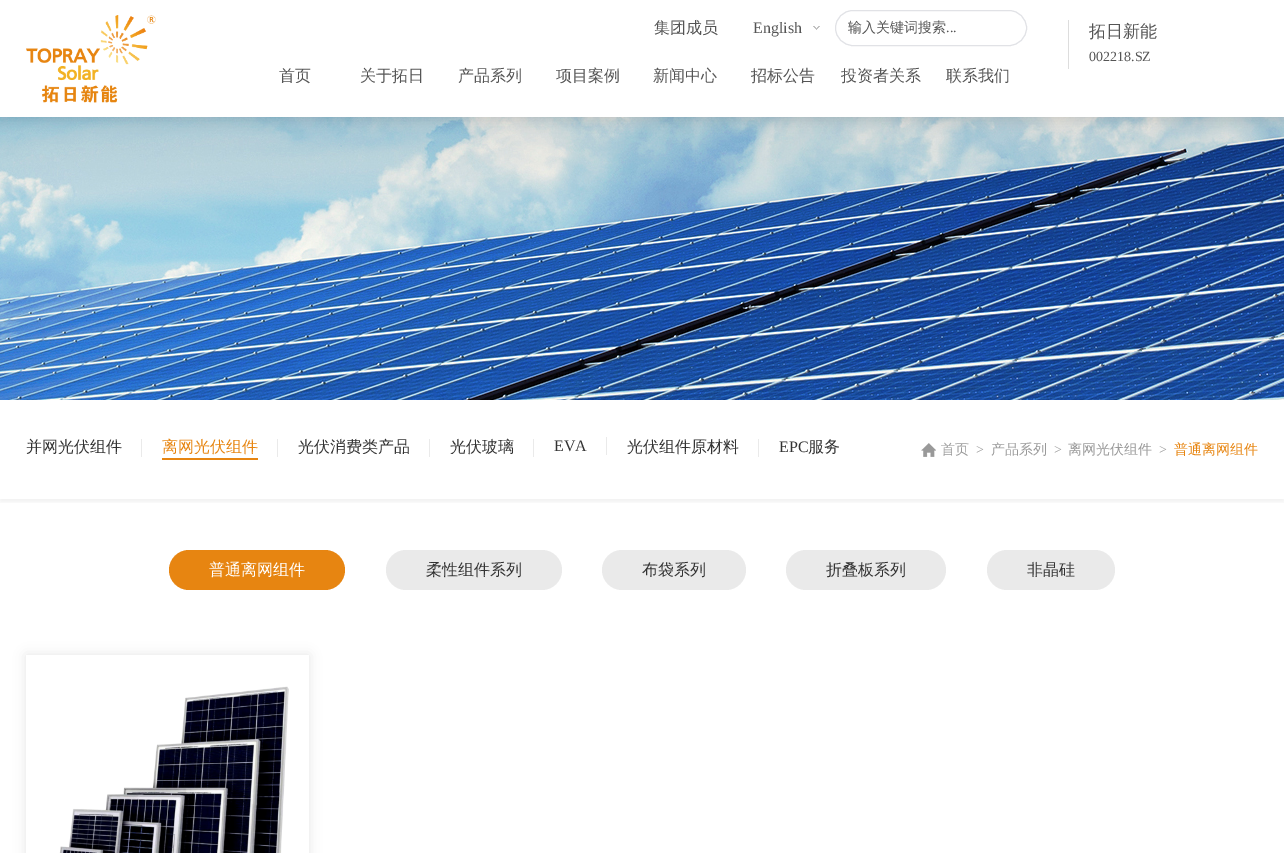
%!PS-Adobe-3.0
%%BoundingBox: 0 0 1284 853
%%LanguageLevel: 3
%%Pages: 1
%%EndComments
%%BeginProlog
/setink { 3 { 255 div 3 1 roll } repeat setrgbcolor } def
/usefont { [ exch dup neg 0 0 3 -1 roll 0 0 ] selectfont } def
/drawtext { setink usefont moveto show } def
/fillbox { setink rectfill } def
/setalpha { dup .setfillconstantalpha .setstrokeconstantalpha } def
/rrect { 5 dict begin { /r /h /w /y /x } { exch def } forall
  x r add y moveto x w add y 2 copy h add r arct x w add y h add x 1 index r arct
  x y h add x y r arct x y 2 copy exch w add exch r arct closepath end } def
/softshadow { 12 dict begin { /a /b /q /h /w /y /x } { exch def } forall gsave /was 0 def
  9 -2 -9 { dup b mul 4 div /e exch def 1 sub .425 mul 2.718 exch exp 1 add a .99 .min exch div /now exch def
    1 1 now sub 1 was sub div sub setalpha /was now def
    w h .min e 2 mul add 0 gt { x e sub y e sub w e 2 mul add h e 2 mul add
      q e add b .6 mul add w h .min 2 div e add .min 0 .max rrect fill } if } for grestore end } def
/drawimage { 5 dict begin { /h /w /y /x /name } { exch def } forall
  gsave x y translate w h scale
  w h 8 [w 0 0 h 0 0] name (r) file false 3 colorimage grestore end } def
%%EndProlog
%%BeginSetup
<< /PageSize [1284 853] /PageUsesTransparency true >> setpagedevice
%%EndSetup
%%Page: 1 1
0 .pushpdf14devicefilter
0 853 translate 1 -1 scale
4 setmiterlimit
0 0 1284 853 255 255 255 fillbox
gsave
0 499 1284 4 rectclip
0 0 0 setink
0 403 1284 99 0 2.5 0.05 softshadow
grestore
(assets/img3.rgb) 0 117 1284 283 drawimage
0 0 0 setink
0 3 1284 117 0 6 0.1 softshadow
0 0 1284 117 255 255 255 fillbox
(assets/img1.rgb) 26 15 130 88 drawimage
(集团成员) 654 33 /WenQuanYiZenHei-Medium 16 85 85 85 drawtext
(assets/img2.rgb) 813 26 7 4 drawimage
(English) 753 33 /LiberationSerif-Regular 16 85 85 85 drawtext
225 226 230 setink
835.5 10.5 191 35 17.5 rrect stroke
(输入关键词搜索) 848 32 /WenQuanYiZenHei-Medium 14 85 85 85 drawtext
(...) 946 32 /LiberationSerif-Regular 14 85 85 85 drawtext
1068 20 1 49 221 221 221 fillbox
(拓日新能) 1089 37 /WenQuanYiZenHei-Medium 17 85 85 85 drawtext
(002218.SZ) 1089 61 /LiberationSerif-Regular 14 85 85 85 drawtext
(首页) 279 81 /WenQuanYiZenHei-Medium 16 85 85 85 drawtext
(关于拓日) 360 81 /WenQuanYiZenHei-Medium 16 85 85 85 drawtext
(产品系列) 458 81 /WenQuanYiZenHei-Medium 16 85 85 85 drawtext
(项目案例) 556 81 /WenQuanYiZenHei-Medium 16 85 85 85 drawtext
(新闻中心) 653 81 /WenQuanYiZenHei-Medium 16 85 85 85 drawtext
(招标公告) 751 81 /WenQuanYiZenHei-Medium 16 85 85 85 drawtext
(投资者关系) 841 81 /WenQuanYiZenHei-Medium 16 85 85 85 drawtext
(联系我们) 946 81 /WenQuanYiZenHei-Medium 16 85 85 85 drawtext
(并网光伏组件) 26 452 /WenQuanYiZenHei-Medium 16 51 51 51 drawtext
141 439 1 18 234 234 234 fillbox
(离网光伏组件) 162 452 /WenQuanYiZenHei-Medium 16 231 133 17 drawtext
162 458 96 2 231 133 17 fillbox
277 439 1 18 234 234 234 fillbox
(光伏消费类产品) 298 452 /WenQuanYiZenHei-Medium 16 51 51 51 drawtext
429 439 1 18 234 234 234 fillbox
(光伏玻璃) 450 452 /WenQuanYiZenHei-Medium 16 51 51 51 drawtext
533 439 1 18 234 234 234 fillbox
(EVA) 554 451 /LiberationSerif-Regular 16 51 51 51 drawtext
606 437 1 18 234 234 234 fillbox
(光伏组件原材料) 627 452 /WenQuanYiZenHei-Medium 16 51 51 51 drawtext
758 439 1 18 234 234 234 fillbox
(EPC) 779 452 /LiberationSerif-Regular 16 51 51 51 drawtext
(服务) 808 452 /WenQuanYiZenHei-Medium 16 51 51 51 drawtext
(assets/img4.rgb) 921 443 15 14 drawimage
(首页) 941 454 /WenQuanYiZenHei-Medium 14 153 153 153 drawtext
(>) 976 454 /LiberationSerif-Regular 14 153 153 153 drawtext
(产品系列) 991 454 /WenQuanYiZenHei-Medium 14 153 153 153 drawtext
(>) 1054 454 /LiberationSerif-Regular 14 153 153 153 drawtext
(离网光伏组件) 1068 454 /WenQuanYiZenHei-Medium 14 153 153 153 drawtext
(>) 1159 454 /LiberationSerif-Regular 14 153 153 153 drawtext
(普通离网组件) 1174 454 /WenQuanYiZenHei-Medium 14 231 133 17 drawtext
169 550 176 40 20 rrect fill
(普通离网组件) 209 575 /WenQuanYiZenHei-Medium 16 255 255 255 drawtext
234 234 234 setink
386 550 176 40 20 rrect fill
(柔性组件系列) 426 575 /WenQuanYiZenHei-Medium 16 51 51 51 drawtext
234 234 234 setink
602 550 144 40 20 rrect fill
(布袋系列) 642 575 /WenQuanYiZenHei-Medium 16 51 51 51 drawtext
234 234 234 setink
786 550 160 40 20 rrect fill
(折叠板系列) 826 575 /WenQuanYiZenHei-Medium 16 51 51 51 drawtext
234 234 234 setink
987 550 128 40 20 rrect fill
(非晶硅) 1027 575 /WenQuanYiZenHei-Medium 16 51 51 51 drawtext
gsave
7 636 moveto 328 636 lineto 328 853 lineto 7 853 lineto closepath 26 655 moveto 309 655 lineto 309 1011 lineto 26 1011 lineto closepath eoclip newpath
0 0 0 setink
26 655 283 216 0 6 0.1 softshadow
grestore
(assets/img5.rgb) 59 686 230 167 drawimage
.poppdf14devicefilter showpage
%%EOF
